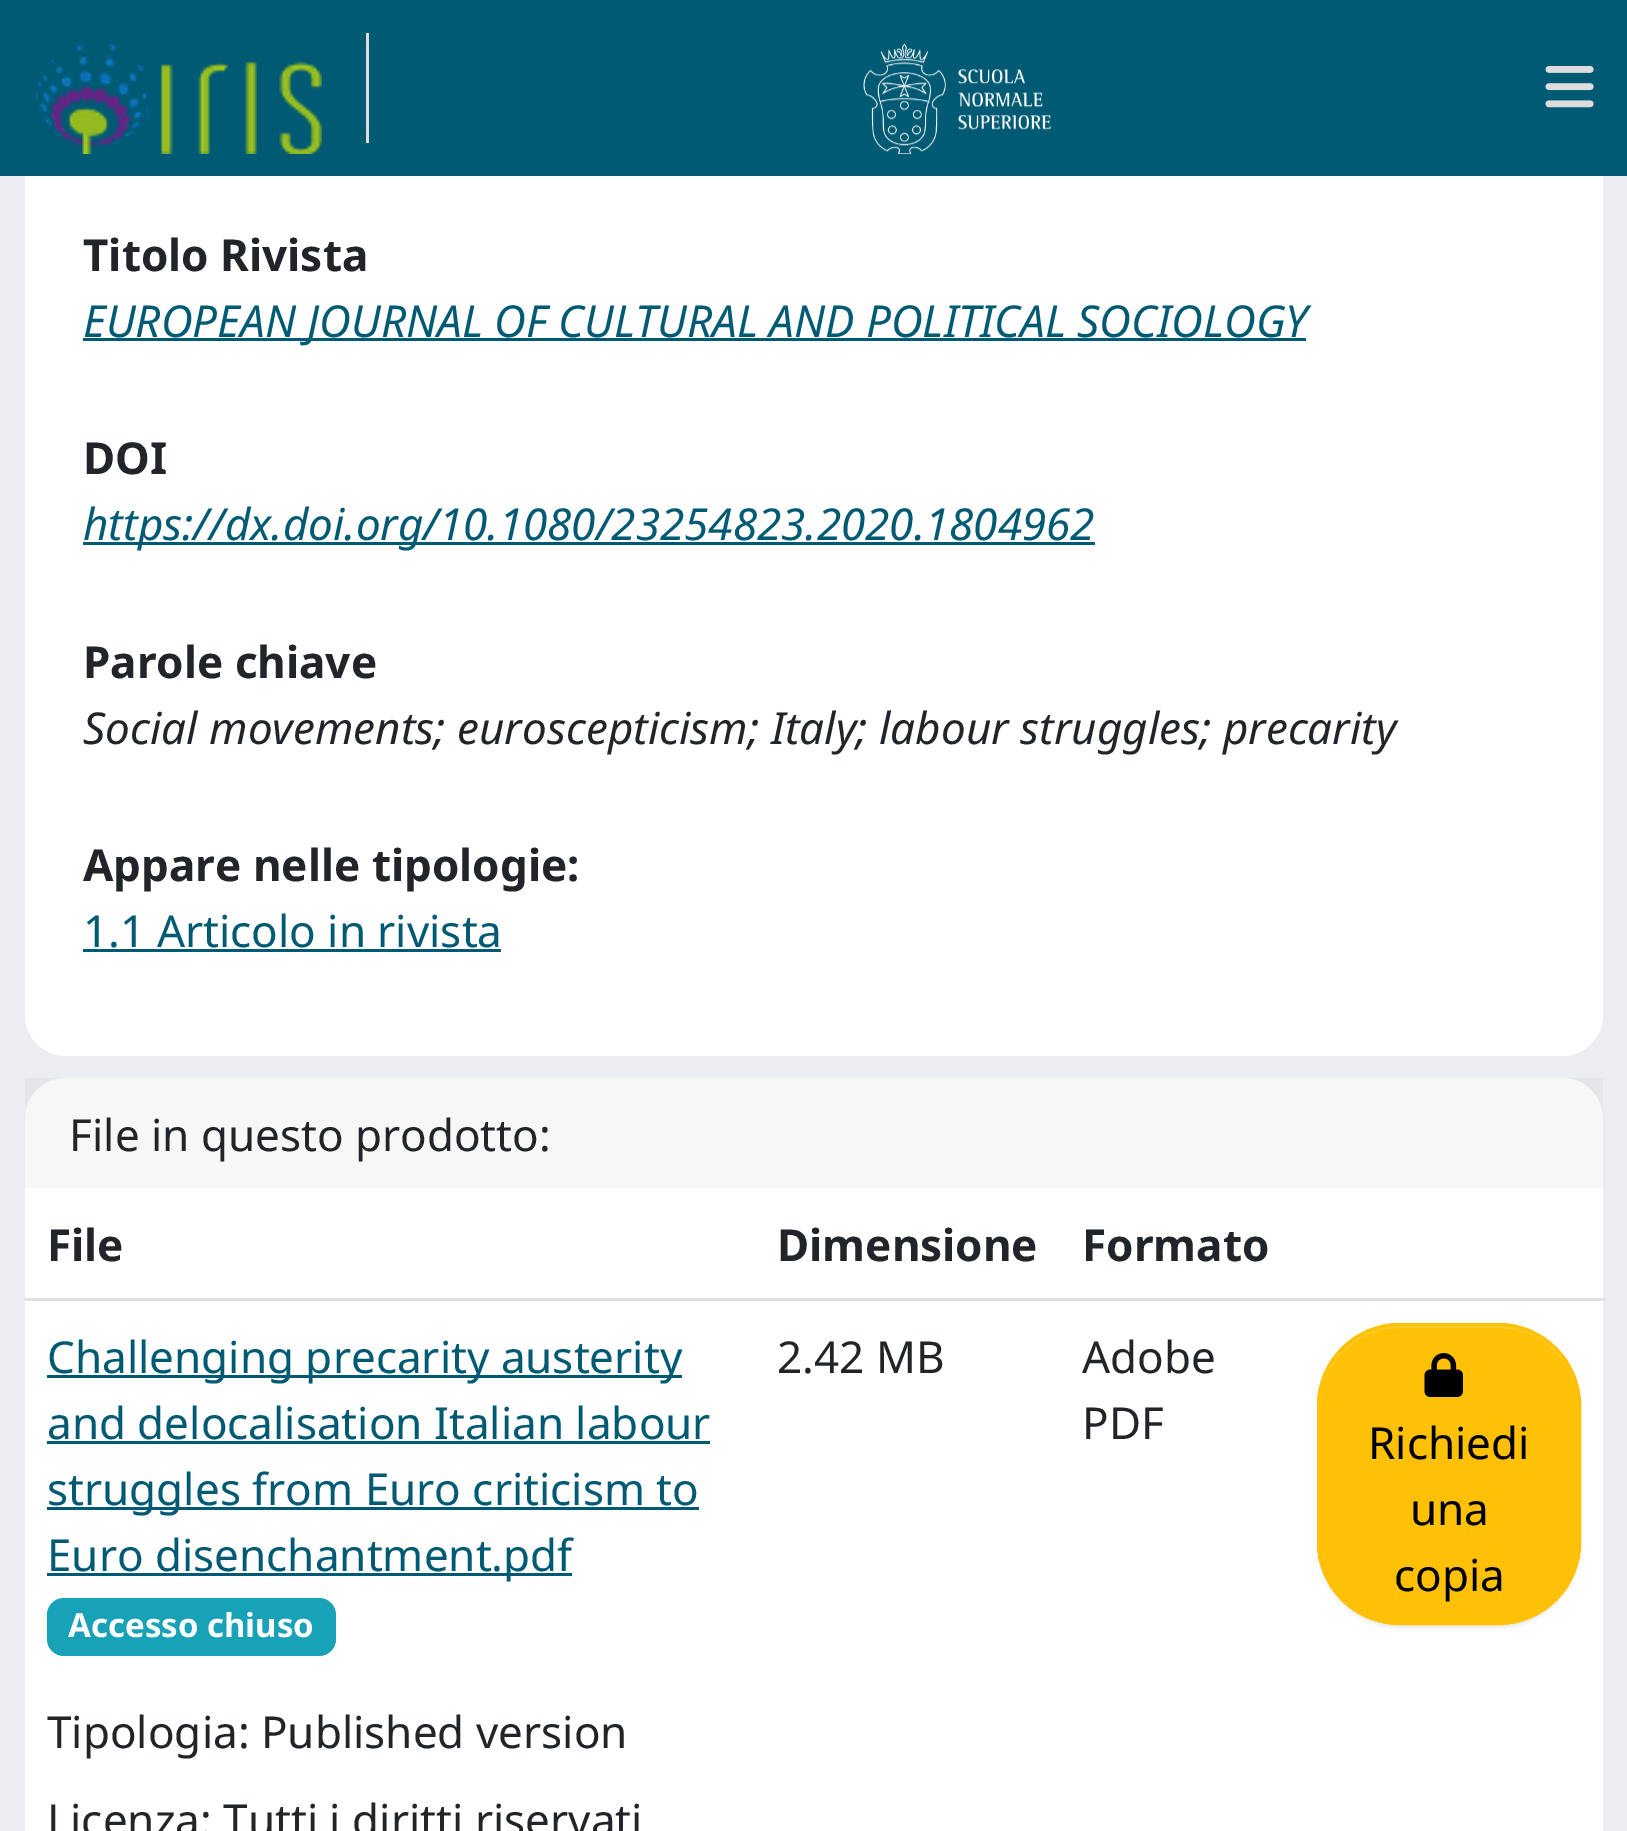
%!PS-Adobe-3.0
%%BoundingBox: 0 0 1627 1831
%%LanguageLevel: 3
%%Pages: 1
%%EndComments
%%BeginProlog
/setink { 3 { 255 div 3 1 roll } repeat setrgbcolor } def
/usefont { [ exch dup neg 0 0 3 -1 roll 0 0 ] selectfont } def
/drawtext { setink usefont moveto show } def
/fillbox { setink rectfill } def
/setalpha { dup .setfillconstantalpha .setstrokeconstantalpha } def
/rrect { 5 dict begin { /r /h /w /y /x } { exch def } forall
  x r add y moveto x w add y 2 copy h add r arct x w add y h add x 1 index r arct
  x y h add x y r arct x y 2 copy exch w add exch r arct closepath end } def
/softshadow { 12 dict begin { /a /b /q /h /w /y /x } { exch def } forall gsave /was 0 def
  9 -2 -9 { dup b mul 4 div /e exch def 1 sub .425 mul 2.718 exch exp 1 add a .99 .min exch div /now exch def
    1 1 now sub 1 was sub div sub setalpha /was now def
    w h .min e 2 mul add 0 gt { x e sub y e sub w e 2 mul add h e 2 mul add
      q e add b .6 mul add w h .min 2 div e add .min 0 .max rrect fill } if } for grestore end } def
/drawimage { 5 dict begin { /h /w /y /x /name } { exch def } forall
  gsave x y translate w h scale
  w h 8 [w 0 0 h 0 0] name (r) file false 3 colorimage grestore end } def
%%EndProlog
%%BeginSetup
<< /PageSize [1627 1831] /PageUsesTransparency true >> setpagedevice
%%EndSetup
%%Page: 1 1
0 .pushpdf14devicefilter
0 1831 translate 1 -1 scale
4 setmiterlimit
0 0 1627 1831 236 237 242 fillbox
255 255 255 setink
25 -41 1578 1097 41 rrect fill
0 0 1627 176 0 90 116 fillbox
366 33 3 110 221 221 221 fillbox
(assets/img1.rgb) 33 44 289 110 drawimage
(assets/img2.rgb) 863 44 188 110 drawimage
(assets/img3.rgb) 1545 66 49 42 drawimage
(Titolo Rivista) 83 271 /NotoSans-Bold 44 33 37 41 drawtext
83 338 1223 3 0 90 116 fillbox
(EUROPEAN JOURNAL OF CULTURAL AND POLITICAL SOCIOLOGY) 83 337 /NotoSans-Italic 44 0 90 116 drawtext
(DOI) 83 474 /NotoSans-Bold 44 33 37 41 drawtext
83 542 1012 3 0 90 116 fillbox
(https://dx.doi.org/10.1080/23254823.2020.1804962) 83 540 /NotoSans-Italic 44 0 90 116 drawtext
(Parole chiave) 83 678 /NotoSans-Bold 44 33 37 41 drawtext
(Social movements; euroscepticism; Italy; labour struggles; precarity) 83 744 /NotoSans-Italic 44 33 37 41 drawtext
(Appare nelle tipologie:) 83 881 /NotoSans-Bold 44 33 37 41 drawtext
(1.1 Articolo in rivista) 83 947 /NotoSans-Regular 44 0 90 116 drawtext
83 949 418 3 0 90 116 fillbox
255 255 255 setink
25 1078 1578 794 41 rrect fill
0.03 setalpha
25 1078 1578 110 0 0 0 fillbox
1 setalpha
(File in questo prodotto:) 69 1151 /NotoSans-Regular 44 33 37 41 drawtext
(File) 47 1261 /NotoSans-Bold 44 33 37 41 drawtext
(Dimensione) 777 1261 /NotoSans-Bold 44 33 37 41 drawtext
(Formato) 1082 1261 /NotoSans-Bold 44 33 37 41 drawtext
25 1298 1581 3 222 226 230 fillbox
47 1375 635 3 0 90 116 fillbox
(Challenging precarity austerity) 47 1373 /NotoSans-Regular 44 0 90 116 drawtext
(and delocalisation Italian labour) 47 1439 /NotoSans-Regular 44 0 90 116 drawtext
47 1441 663 3 0 90 116 fillbox
47 1507 652 3 0 90 116 fillbox
(struggles from Euro criticism to) 47 1505 /NotoSans-Regular 44 0 90 116 drawtext
47 1573 525 3 0 90 116 fillbox
(Euro disenchantment.pdf) 47 1571 /NotoSans-Regular 44 0 90 116 drawtext
23 162 184 setink
47 1598 289 58 17 rrect fill
(Accesso chiuso) 68 1637 /NotoSans-Bold 33 255 255 255 drawtext
(Tipologia: Published version) 47 1748 /NotoSans-Regular 44 33 37 41 drawtext
(Licenza: Tutti i diritti riservati) 47 1836 /NotoSans-Regular 44 33 37 41 drawtext
(2.42 MB) 777 1373 /NotoSans-Regular 44 33 37 41 drawtext
(Adobe) 1082 1373 /NotoSans-Regular 44 33 37 41 drawtext
(PDF) 1082 1439 /NotoSans-Regular 44 33 37 41 drawtext
0 0 0 setink
1317 1326 264 302 83 1.5 0.07 softshadow
255 193 7 setink
1317 1323 264 302 83 rrect fill
255 202 44 setink
1400 1328 moveto 1499 1328 lineto 1543 1328 1578 1364 1578 1408 curveto 1578 1546 lineto 1578 1554 1577 1562 1575 1569 curveto 1577 1561 1579 1552 1579 1543 curveto 1579 1406 lineto 1579 1362 1543 1326 1499 1326 curveto 1400 1326 lineto 1356 1326 1320 1362 1320 1406 curveto 1320 1408 lineto 1320 1364 1356 1328 1400 1328 curveto closepath fill
255 193 7 setink
3 setlinewidth
1318.5 1324.5 261 299 81.5 rrect stroke
(assets/img4.rgb) 1424 1353 39 44 drawimage
(Richiedi) 1368 1459 /NotoSans-Regular 44 0 0 0 drawtext
(una) 1410 1525 /NotoSans-Regular 44 0 0 0 drawtext
(copia) 1394 1591 /NotoSans-Regular 44 0 0 0 drawtext
.poppdf14devicefilter showpage
%%EOF
